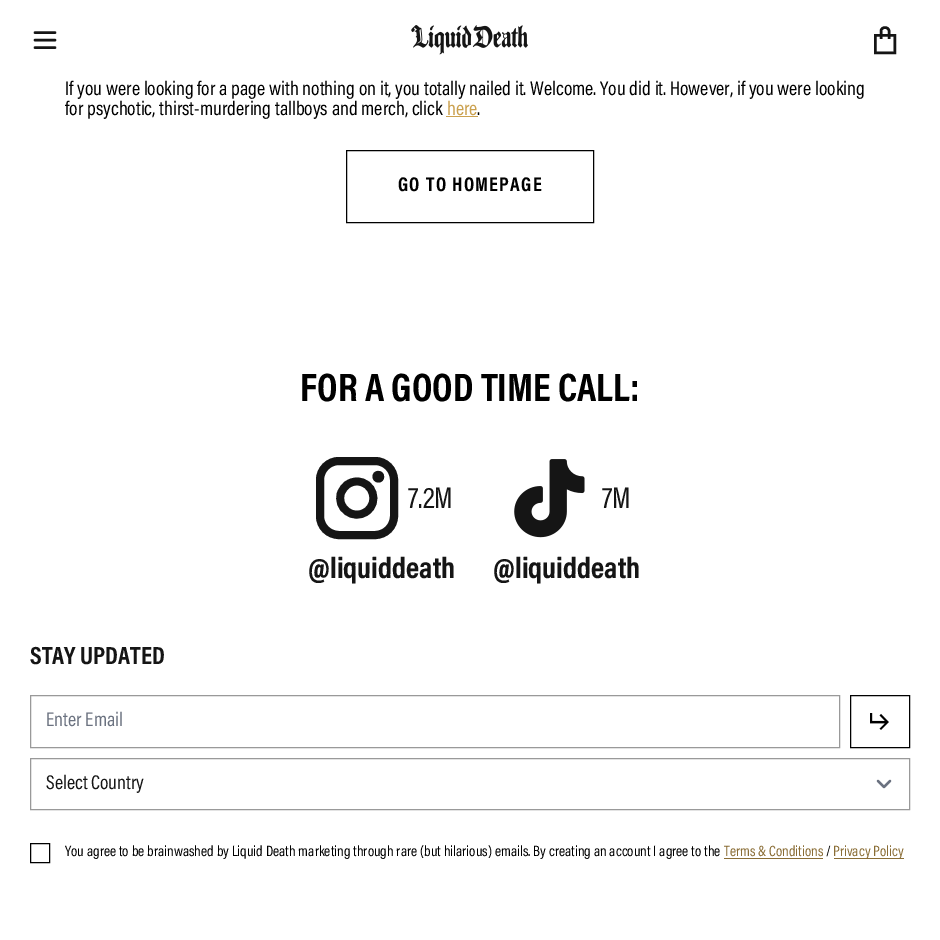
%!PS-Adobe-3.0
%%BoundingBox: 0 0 940 940
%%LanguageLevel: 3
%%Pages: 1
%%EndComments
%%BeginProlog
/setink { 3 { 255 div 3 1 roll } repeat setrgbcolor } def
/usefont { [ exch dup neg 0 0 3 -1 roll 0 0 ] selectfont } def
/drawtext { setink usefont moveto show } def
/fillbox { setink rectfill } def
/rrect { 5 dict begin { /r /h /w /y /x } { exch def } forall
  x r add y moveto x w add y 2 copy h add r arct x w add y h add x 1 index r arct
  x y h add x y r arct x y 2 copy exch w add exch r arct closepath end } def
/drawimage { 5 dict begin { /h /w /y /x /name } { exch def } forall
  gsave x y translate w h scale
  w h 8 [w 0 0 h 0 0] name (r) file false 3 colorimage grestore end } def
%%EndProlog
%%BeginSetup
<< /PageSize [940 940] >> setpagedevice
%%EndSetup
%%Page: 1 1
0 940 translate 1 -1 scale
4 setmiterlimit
0 0 940 940 255 255 255 fillbox
21 21 21 setink
2.5 setlinewidth
1 setlinecap
1 setlinejoin
35 32.5 moveto 55 32.5 lineto 35 40 moveto 55 40 lineto 35 47.5 moveto 55 47.5 lineto stroke
(assets/img1.rgb) 411 25 117 30 drawimage
0 setlinecap
0 setlinejoin
875.25 35.25 19.5 17.5 rectstroke
881 39 moveto 881 31 lineto 881 29 883 27.5 885 27.5 curveto 887 27.5 889 29 889 31 curveto 889 39 lineto stroke
(If you were looking for a page with nothing on it, you totally nailed it. Welcome. You did it. However, if you were looking) 65 95 /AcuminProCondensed-Regular 20 0 0 0 drawtext
(for psychotic, thirst-murdering tallboys and merch, click) 65 115 /AcuminProCondensed-Regular 20 0 0 0 drawtext
(here) 447 115 /AcuminProCondensed-Regular 20 203 161 79 drawtext
446 116 32 1 203 161 79 fillbox
(.) 477 115 /AcuminProCondensed-Regular 20 0 0 0 drawtext
1 setlinewidth
346.5 150.5 247 72 rectstroke
/AcuminProCondensed-Bold 20 usefont
398 191 moveto 1.25 0 (GO TO HOMEPAGE) ashow
(FOR A GOOD TIME CALL:) 300 401 /AcuminProCondensed-Bold 40 0 0 0 drawtext
21 21 21 setink
8 setlinewidth
320 461 74 74 19 rrect stroke
378.5 482.5 moveto 370.5 482.5 370.5 470.5 378.5 471 curveto 386 471 386 482.5 378.5 482.5 curveto closepath fill
7.8 setlinewidth
347.5 484.5 moveto 350.5 482.5 353.5 481.5 357 481.5 curveto 373 481.5 379.5 502.5 366.5 511.5 curveto 353.5 521 336 508 341 493 curveto 342.5 489.5 344.5 486.5 347.5 484.5 curveto closepath stroke
(7.2M) 408 508 /AcuminProCondensed-Regular 30 21 21 21 drawtext
(@liquiddeath) 308 578 /AcuminProCondensed-Bold 30 21 21 21 drawtext
(assets/img2.rgb) 514 459 71 79 drawimage
(7M) 602 508 /AcuminProCondensed-Regular 30 21 21 21 drawtext
(@liquiddeath) 493 578 /AcuminProCondensed-Bold 30 21 21 21 drawtext
(STAY UPDATED) 30 664 /AcuminProCondensed-Bold 25 21 21 21 drawtext
153 153 153 setink
1 setlinewidth
30.5 695.5 809 52 rectstroke
(Enter Email) 46 726 /AcuminProCondensed-Regular 20 107 114 128 drawtext
0 0 0 setink
850.5 695.5 59 52 rectstroke
(assets/img3.rgb) 870 713 19 17 drawimage
107 114 128 setink
2.2 setlinewidth
1 setlinecap
1 setlinejoin
878 781 moveto 884 787 lineto 890 781 lineto stroke
153 153 153 setink
1 setlinewidth
0 setlinecap
0 setlinejoin
30.5 758.5 879 51 rectstroke
(Select Country) 46 789 /AcuminProCondensed-Regular 20 21 21 21 drawtext
0 0 0 setink
30.5 843.5 19 19 rectstroke
(You agree to be brainwashed by Liquid Death marketing through rare \(but hilarious\) emails. By creating an account I agree to the) 65 856 /AcuminProCondensed-Regular 15 0 0 0 drawtext
(Terms & Conditions) 724 856 /AcuminProCondensed-Regular 15 138 109 53 drawtext
724 858 99 1 138 109 53 fillbox
(/) 826 856 /AcuminProCondensed-Regular 15 0 0 0 drawtext
834 858 70 1 138 109 53 fillbox
(Privacy Policy) 833 856 /AcuminProCondensed-Regular 15 138 109 53 drawtext
showpage
%%EOF
